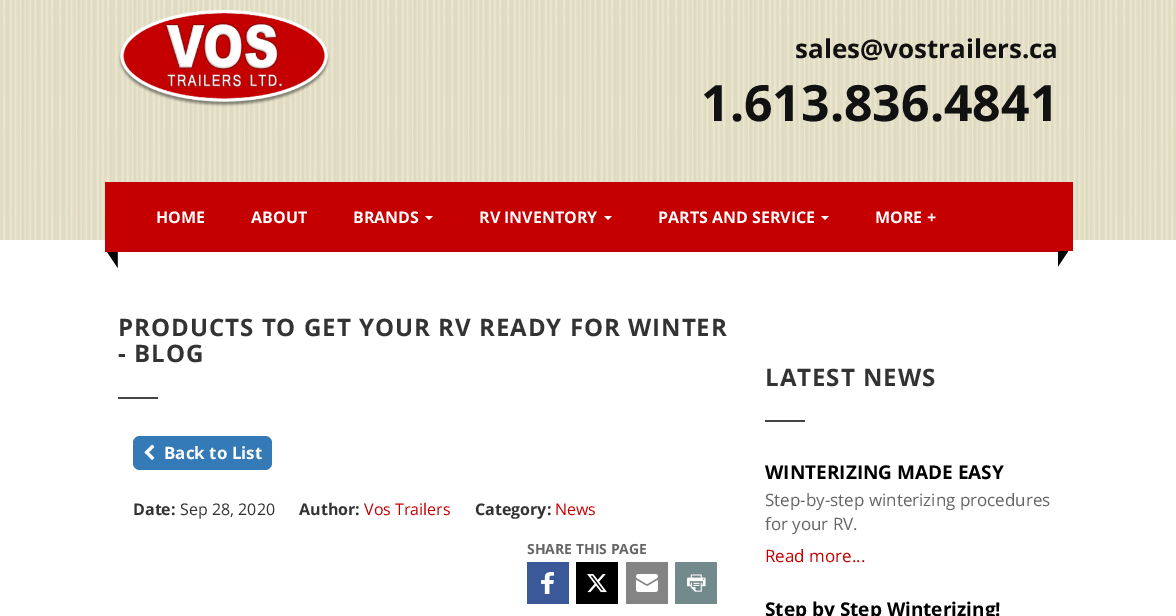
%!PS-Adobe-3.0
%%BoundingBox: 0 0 1176 616
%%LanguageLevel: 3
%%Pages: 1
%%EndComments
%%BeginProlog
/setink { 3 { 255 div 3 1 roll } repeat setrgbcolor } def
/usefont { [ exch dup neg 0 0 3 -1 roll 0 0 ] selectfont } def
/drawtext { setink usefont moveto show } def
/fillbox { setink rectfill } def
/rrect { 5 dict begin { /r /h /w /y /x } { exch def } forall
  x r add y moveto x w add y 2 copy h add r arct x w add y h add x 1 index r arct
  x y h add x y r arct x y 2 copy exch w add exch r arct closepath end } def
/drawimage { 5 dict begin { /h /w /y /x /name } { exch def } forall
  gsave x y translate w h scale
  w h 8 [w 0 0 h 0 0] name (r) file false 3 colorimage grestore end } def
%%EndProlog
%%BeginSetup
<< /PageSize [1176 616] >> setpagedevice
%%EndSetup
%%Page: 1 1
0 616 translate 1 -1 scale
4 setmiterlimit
0 0 1176 616 255 255 255 fillbox
(assets/img1.rgb) 0 0 1176 240 drawimage
(assets/img2.rgb) 118 10 212 97 drawimage
(sales@vostrailers.ca) 795 58 /OpenSans-Bold 26 17 17 17 drawtext
(1.613.836.4841) 701 121 /OpenSans-Bold 50 17 17 17 drawtext
118 182 940 70 196 0 1 fillbox
(assets/img3.rgb) 105 182 13 87 drawimage
(HOME) 156 223 /OpenSans-Bold 16 255 255 255 drawtext
(ABOUT) 251 223 /OpenSans-Bold 16 255 255 255 drawtext
(BRANDS) 353 223 /OpenSans-Bold 16 255 255 255 drawtext
425 216 moveto 433 216 lineto 429 220 lineto closepath fill
(RV INVENTORY) 479 223 /OpenSans-Bold 16 255 255 255 drawtext
604 216 moveto 612 216 lineto 608 220 lineto closepath fill
(PARTS AND SERVICE) 658 223 /OpenSans-Bold 16 255 255 255 drawtext
821 216 moveto 829 216 lineto 825 220 lineto closepath fill
(MORE +) 875 223 /OpenSans-Bold 16 255 255 255 drawtext
(assets/img4.rgb) 1058 182 15 85 drawimage
/OpenSans-Bold 24 usefont
51 51 51 setink
118 336 moveto 1 0 (PRODUCTS TO GET YOUR RV READY FOR WINTER) ashow
118 362 moveto 1 0 (- BLOG) ashow
118 397 40 2 68 68 68 fillbox
51 122 183 setink
133 436 139 34 7 rrect fill
(assets/img5.rgb) 144 444 11 16 drawimage
(Back to List) 164 459 /OpenSans-Bold 17 255 255 255 drawtext
(Date:) 133 515 /OpenSans-Bold 16 51 51 51 drawtext
(Sep 28, 2020) 180 515 /OpenSans-Regular 16 51 51 51 drawtext
(Author:) 299 515 /OpenSans-Bold 16 51 51 51 drawtext
(Vos Trailers) 364 515 /OpenSans-Regular 16 196 0 1 drawtext
(Category:) 475 515 /OpenSans-Bold 16 51 51 51 drawtext
(News) 555 515 /OpenSans-Regular 16 196 0 1 drawtext
(SHARE THIS PAGE) 527 554 /OpenSans-Bold 14 102 102 102 drawtext
527 562 42 42 59 89 152 fillbox
(assets/img6.rgb) 541 572 13 22 drawimage
576 562 42 42 0 0 0 fillbox
(assets/img7.rgb) 587 574 20 19 drawimage
626 562 42 42 132 132 132 fillbox
(assets/img8.rgb) 636 574 22 18 drawimage
675 562 42 42 115 138 141 fillbox
(assets/img9.rgb) 687 574 19 18 drawimage
/OpenSans-Bold 24 usefont
51 51 51 setink
765 386 moveto 1 0 (LATEST NEWS) ashow
765 420 40 2 68 68 68 fillbox
(WINTERIZING MADE EASY) 765 479 /OpenSans-Bold 19 0 0 0 drawtext
(Step-by-step winterizing procedures) 765 506 /OpenSans-Regular 17 102 102 102 drawtext
(for your RV.) 765 530 /OpenSans-Regular 17 102 102 102 drawtext
(Read more...) 765 562 /OpenSans-Regular 17 196 0 1 drawtext
(Step by Step Winterizing!) 765 616 /OpenSans-Bold 19 0 0 0 drawtext
showpage
%%EOF
